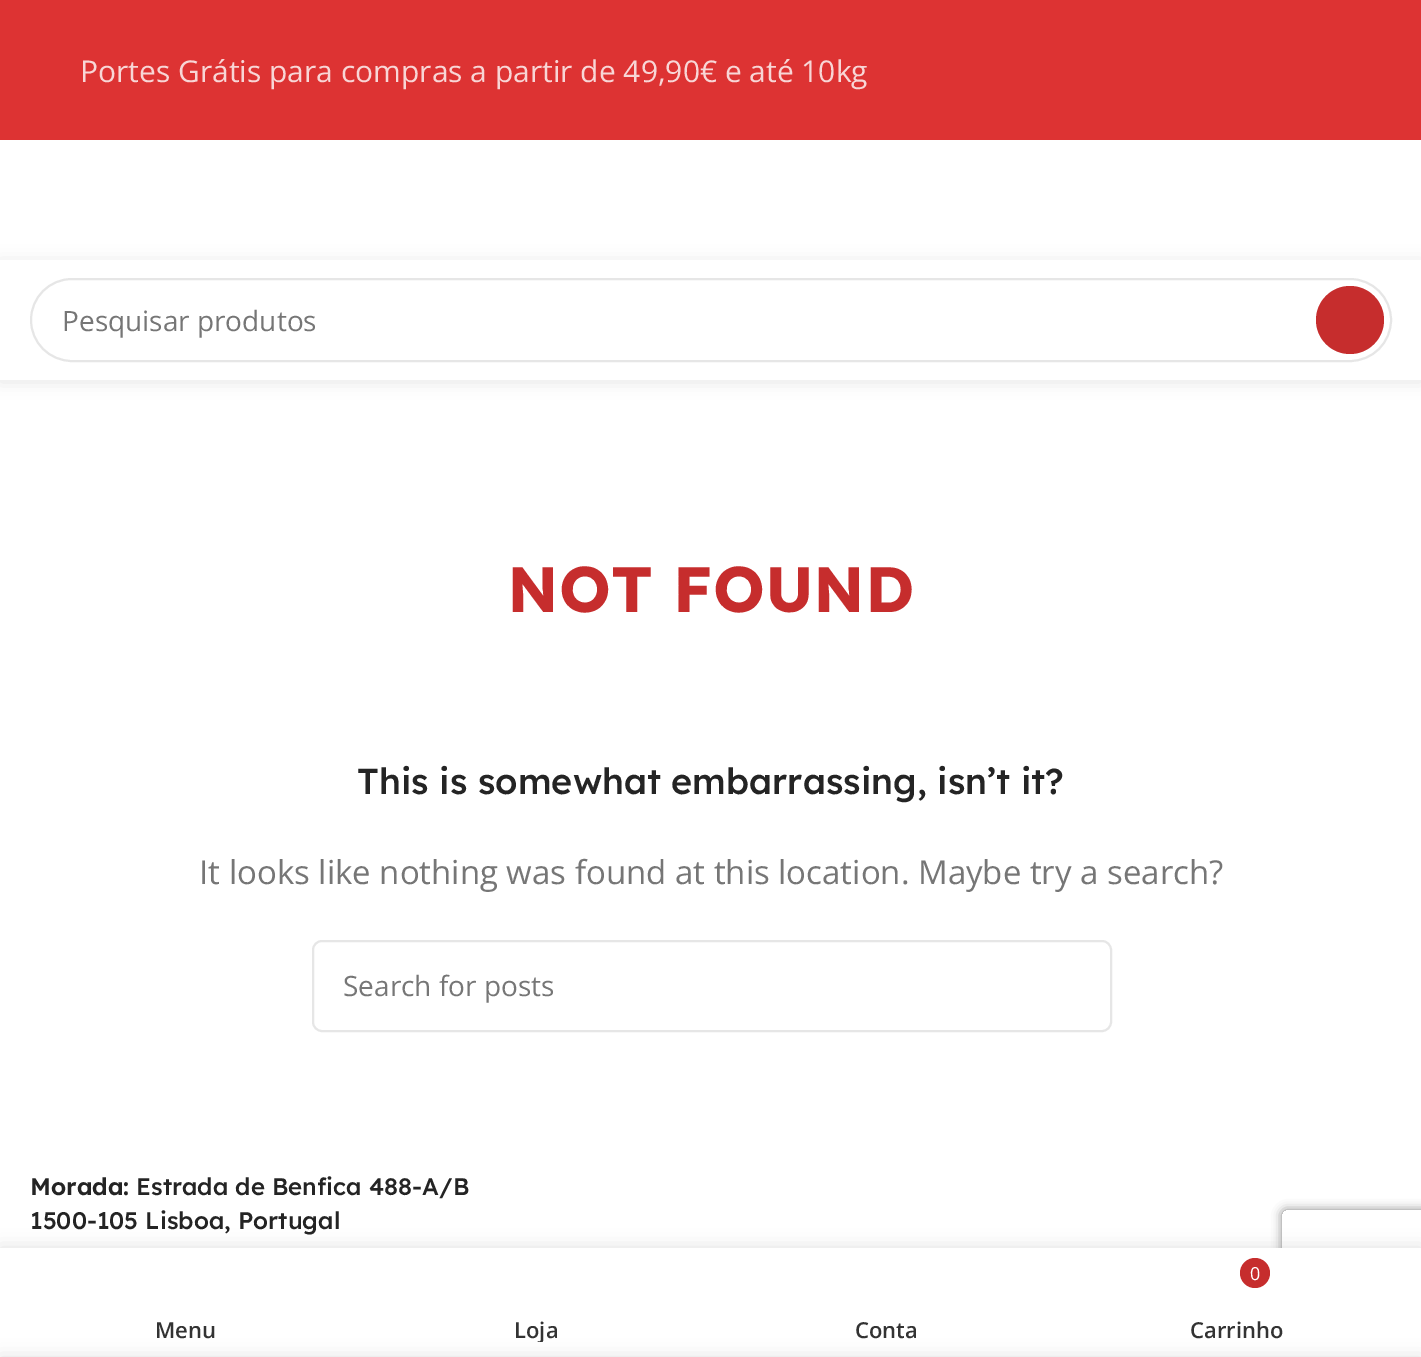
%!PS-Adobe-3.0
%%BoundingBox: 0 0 1421 1357
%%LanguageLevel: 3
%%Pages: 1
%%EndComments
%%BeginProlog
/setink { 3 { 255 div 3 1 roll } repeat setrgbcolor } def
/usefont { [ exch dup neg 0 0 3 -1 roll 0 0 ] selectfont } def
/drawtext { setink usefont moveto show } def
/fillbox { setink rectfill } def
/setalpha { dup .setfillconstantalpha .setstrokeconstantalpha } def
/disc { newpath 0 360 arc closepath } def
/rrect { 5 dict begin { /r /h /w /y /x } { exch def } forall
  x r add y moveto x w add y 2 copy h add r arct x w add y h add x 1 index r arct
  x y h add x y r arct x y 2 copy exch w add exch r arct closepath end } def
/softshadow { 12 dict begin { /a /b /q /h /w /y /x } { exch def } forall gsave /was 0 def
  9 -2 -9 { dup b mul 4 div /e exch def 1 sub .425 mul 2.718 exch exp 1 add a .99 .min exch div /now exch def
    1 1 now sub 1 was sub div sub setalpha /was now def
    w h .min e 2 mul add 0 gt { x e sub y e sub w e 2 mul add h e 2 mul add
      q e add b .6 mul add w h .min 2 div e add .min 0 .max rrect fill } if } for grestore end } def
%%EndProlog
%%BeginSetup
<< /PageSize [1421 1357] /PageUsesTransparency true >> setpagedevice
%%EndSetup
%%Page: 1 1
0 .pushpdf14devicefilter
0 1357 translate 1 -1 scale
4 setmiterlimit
0 0 1421 1357 255 255 255 fillbox
0 0 1421 140 221 51 51 fillbox
(Portes Grátis para compras a partir de 49,90€ e até 10kg) 80 82 /OpenSans-Regular 30 248 214 214 drawtext
gsave
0 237 moveto 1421 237 lineto 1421 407 lineto 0 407 lineto closepath 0 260 moveto 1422 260 lineto 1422 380 lineto 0 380 lineto closepath eoclip newpath
0 0 0 setink
0 262 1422 120 0 8 0.1 softshadow
grestore
230 230 230 setink
2 setlinewidth
31 279 1360 82 41 rrect stroke
(Pesquisar produtos) 62 331 /OpenSans-Regular 28 118 118 118 drawtext
198 45 45 setink
1350 320 34 disc fill
(NOT FOUND) 507 612 /LexendDeca-Bold 64 198 45 45 drawtext
(This is somewhat embarrassing, isn’t it?) 357 794 /LexendDeca-Medium 36 36 36 36 drawtext
(It looks like nothing was found at this location. Maybe try a search?) 199 884 /OpenSans-Regular 33 118 118 118 drawtext
230 230 230 setink
313 941 798 90 9 rrect stroke
(Search for posts) 343 996 /OpenSans-Regular 28 118 118 118 drawtext
(Morada:) 30 1195 /LexendDeca-SemiBold 24 36 36 36 drawtext
(Estrada de Benfica 488-A/B) 136 1195 /LexendDeca-Medium 24 36 36 36 drawtext
(1500-105 Lisboa, Portugal) 30 1229 /LexendDeca-Medium 24 36 36 36 drawtext
0 0 0 setink
0 1248 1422 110 0 9 0.12 softshadow
gsave
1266 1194 moveto 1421 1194 lineto 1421 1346 lineto 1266 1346 lineto closepath 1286 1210 moveto 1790 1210 lineto 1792 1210 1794 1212 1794 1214 curveto 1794 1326 lineto 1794 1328 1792 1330 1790 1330 curveto 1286 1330 lineto 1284 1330 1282 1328 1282 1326 curveto 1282 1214 lineto 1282 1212 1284 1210 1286 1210 curveto closepath eoclip newpath
128 128 128 setink
1282 1210 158 120 4 5 1 softshadow
grestore
0 1248 1421 109 255 255 255 fillbox
(Menu) 155 1338 /OpenSans-SemiBold 22 51 51 51 drawtext
gsave
380 1316 312 26 rectclip
(Loja) 514 1338 /OpenSans-SemiBold 22 51 51 51 drawtext
grestore
(Conta) 855 1338 /OpenSans-SemiBold 22 51 51 51 drawtext
198 45 45 setink
1255 1273 15 disc fill
(0) 1250 1280 /OpenSans-Regular 18 255 255 255 drawtext
(Carrinho) 1190 1338 /OpenSans-SemiBold 22 51 51 51 drawtext
0 0 0 setink
0 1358 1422 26 0 9 0.14 softshadow
.poppdf14devicefilter showpage
%%EOF
